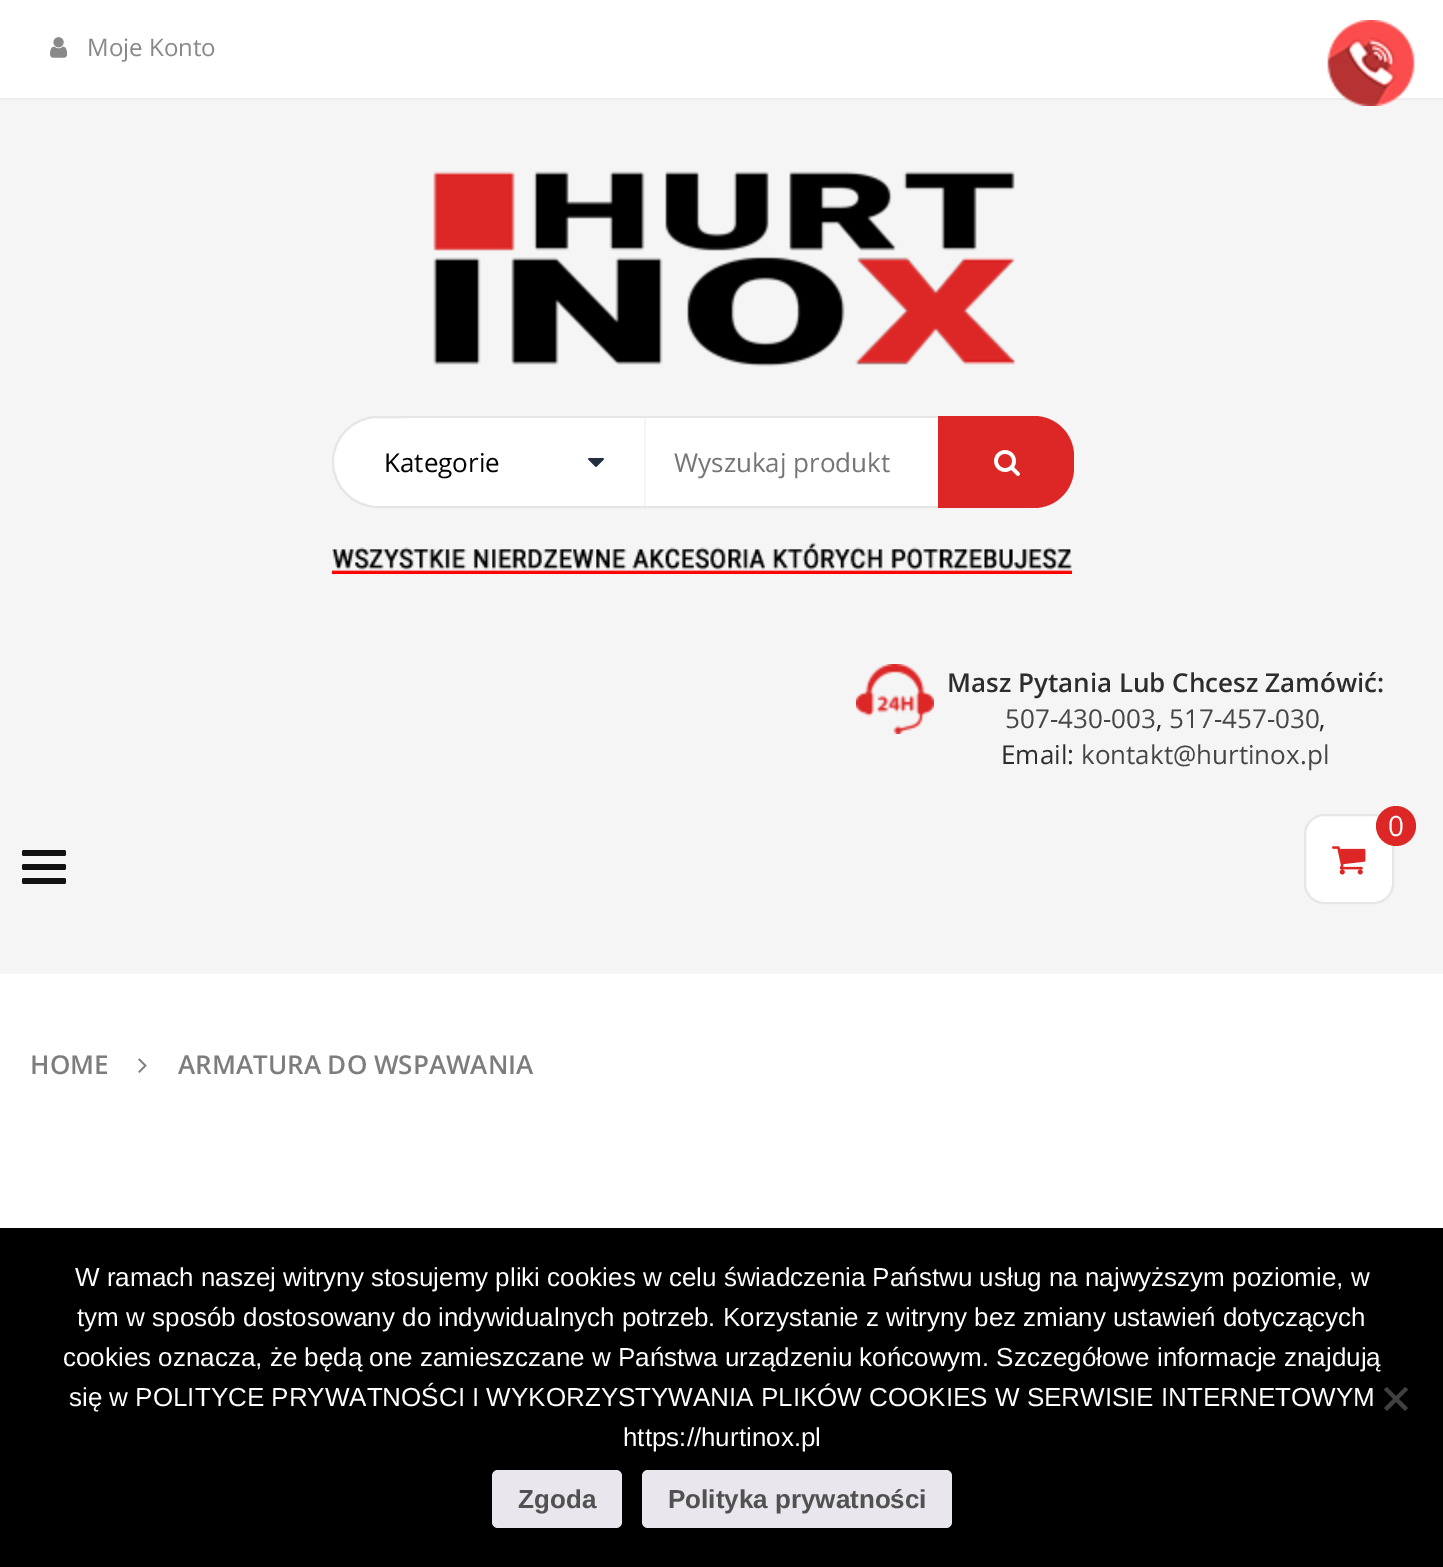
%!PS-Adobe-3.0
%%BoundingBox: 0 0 1443 1567
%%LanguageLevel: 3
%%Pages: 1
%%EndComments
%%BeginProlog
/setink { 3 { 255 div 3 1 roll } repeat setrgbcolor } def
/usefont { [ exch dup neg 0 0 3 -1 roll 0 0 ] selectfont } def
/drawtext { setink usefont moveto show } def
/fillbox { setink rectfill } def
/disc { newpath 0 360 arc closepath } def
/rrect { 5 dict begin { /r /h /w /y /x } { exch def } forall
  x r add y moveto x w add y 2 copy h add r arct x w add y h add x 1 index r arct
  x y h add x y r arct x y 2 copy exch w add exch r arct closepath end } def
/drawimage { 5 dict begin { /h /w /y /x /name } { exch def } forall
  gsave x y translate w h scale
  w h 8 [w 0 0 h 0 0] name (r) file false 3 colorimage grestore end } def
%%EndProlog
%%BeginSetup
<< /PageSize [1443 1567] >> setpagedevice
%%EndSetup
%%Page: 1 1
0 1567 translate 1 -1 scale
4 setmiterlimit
0 0 1443 1567 255 255 255 fillbox
0 98 1443 2 237 237 237 fillbox
0 100 1443 874 245 245 245 fillbox
(assets/img1.rgb) 1327 20 88 86 drawimage
(assets/img2.rgb) 50 37 18 21 drawimage
(Moje Konto) 87 56 /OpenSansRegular-Regular 24 137 137 137 drawtext
(assets/img3.rgb) 433 171 583 196 drawimage
255 255 255 setink
333 417 738 90 45 rrect gsave fill grestore
230 230 230 setink
2 setlinewidth
stroke
255 255 255 setink
374 418 696 88 40 rrect fill
374 418 2 88 255 255 255 fillbox
644 418 2 88 245 245 245 fillbox
(Kategorie) 384 472 /OpenSansRegular-Regular 26 0 0 0 drawtext
(assets/img4.rgb) 588 458 16 9 drawimage
(Wyszukaj produkt) 674 472 /OpenSansRegular-Regular 26 117 117 117 drawtext
221 39 39 setink
938 416 moveto 1034 416 lineto 1056 416 1074 434 1074 456 curveto 1074 468 lineto 1074 490 1056 508 1034 508 curveto 938 508 lineto closepath fill
(assets/img5.rgb) 994 450 26 26 drawimage
(assets/img6.rgb) 332 542 740 32 drawimage
(assets/img7.rgb) 856 664 78 70 drawimage
(Masz Pytania Lub Chcesz Zamówić:) 947 692 /OpenSans-SemiBold 26 45 45 45 drawtext
(507-430-003) 1005 728 /OpenSansRegular-Regular 26 70 70 70 drawtext
(,) 1156 728 /OpenSansRegular-Regular 26 45 45 45 drawtext
(517-457-030) 1169 728 /OpenSansRegular-Regular 26 70 70 70 drawtext
(,) 1319 728 /OpenSansRegular-Regular 26 45 45 45 drawtext
(Email:) 1001 764 /OpenSansRegular-Regular 26 45 45 45 drawtext
(kontakt@hurtinox.pl) 1081 764 /OpenSansRegular-Regular 26 70 70 70 drawtext
255 255 255 setink
1305 815 88 88 19 rrect gsave fill grestore
230 230 230 setink
stroke
221 39 39 setink
1396 826 20 disc fill
(0) 1388 836 /OpenSansRegular-Regular 28 255 255 255 drawtext
(assets/img8.rgb) 1332 846 34 29 drawimage
17 17 17 setink
22 850 44 6 2 rrect fill
22 864 44 6 2 rrect fill
22 878 44 6 2 rrect fill
(HOME) 30 1074 /OpenSans-SemiBold 26 125 125 125 drawtext
(assets/img9.rgb) 138 1058 9 15 drawimage
(ARMATURA DO WSPAWANIA) 178 1074 /OpenSans-SemiBold 26 125 125 125 drawtext
0 1228 1443 339 0 0 0 fillbox
(W ramach naszej witryny stosujemy pliki cookies w celu świadczenia Państwu usług na najwyższym poziomie, w) 75 1286 /LiberationSans-Regular 26 255 255 255 drawtext
(tym w sposób dostosowany do indywidualnych potrzeb. Korzystanie z witryny bez zmiany ustawień dotyczących) 77 1326 /LiberationSans-Regular 26 255 255 255 drawtext
(cookies oznacza, że będą one zamieszczane w Państwa urządzeniu końcowym. Szczegółowe informacje znajdują) 63 1366 /LiberationSans-Regular 26 255 255 255 drawtext
(się w POLITYCE PRYWATNOŚCI I WYKORZYSTYWANIA PLIKÓW COOKIES W SERWISIE INTERNETOWYM) 69 1406 /LiberationSans-Regular 26 255 255 255 drawtext
(https://hurtinox.pl) 623 1446 /LiberationSans-Regular 26 255 255 255 drawtext
64 64 64 setink
1405 1387 moveto 1408 1389.5 lineto 1387 1411 lineto 1384 1408 lineto closepath fill
1384 1389.5 moveto 1387 1387 lineto 1408 1408 lineto 1405 1411 lineto closepath fill
233 230 237 setink
492 1470 130 58 6 rrect fill
(Zgoda) 518 1508 /LiberationSans-Bold 26 81 81 81 drawtext
233 230 237 setink
642 1470 310 58 6 rrect fill
(Polityka prywatności) 668 1508 /LiberationSans-Bold 26 81 81 81 drawtext
showpage
%%EOF
